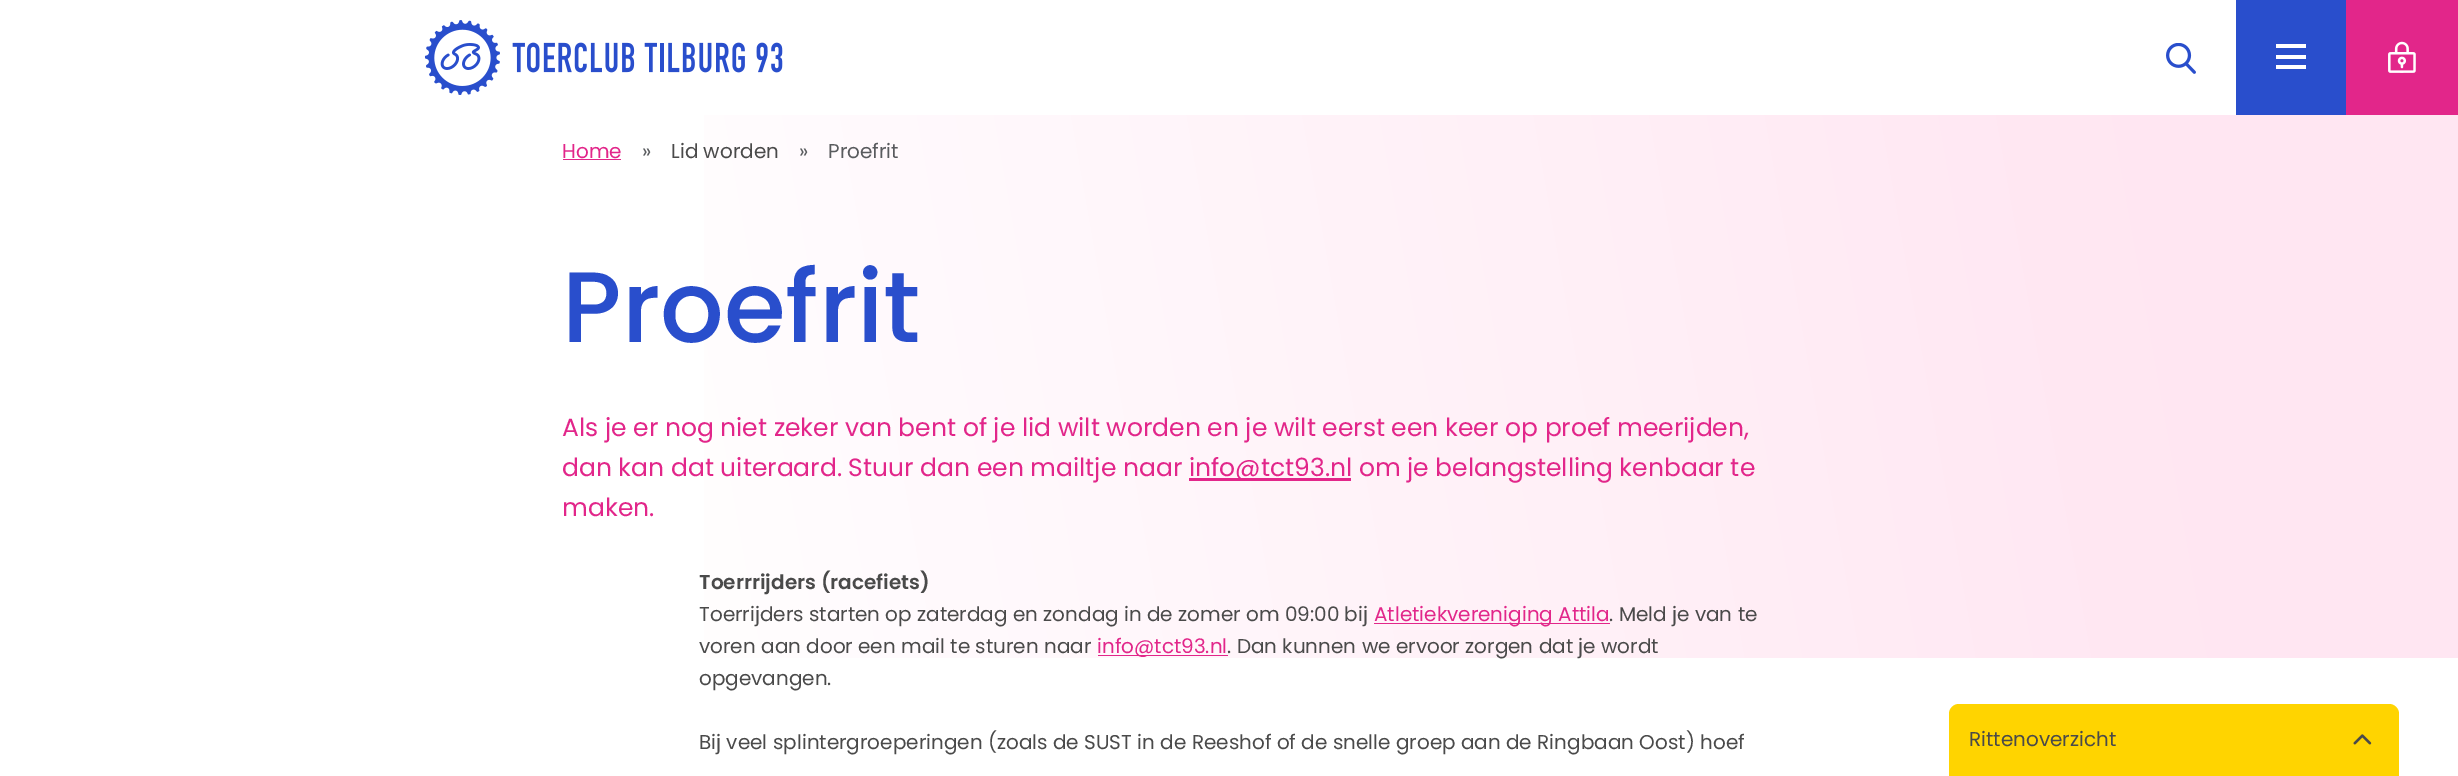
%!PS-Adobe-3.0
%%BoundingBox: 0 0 2458 776
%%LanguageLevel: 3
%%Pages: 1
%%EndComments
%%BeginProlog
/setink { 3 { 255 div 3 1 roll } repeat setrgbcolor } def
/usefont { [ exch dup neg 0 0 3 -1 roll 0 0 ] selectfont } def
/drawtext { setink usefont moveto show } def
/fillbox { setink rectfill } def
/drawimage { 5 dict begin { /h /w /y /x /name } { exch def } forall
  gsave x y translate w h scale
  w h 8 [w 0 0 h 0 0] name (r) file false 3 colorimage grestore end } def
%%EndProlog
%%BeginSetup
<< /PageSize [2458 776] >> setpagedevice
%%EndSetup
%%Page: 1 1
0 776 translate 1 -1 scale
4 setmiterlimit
0 0 2458 776 255 255 255 fillbox
(assets/img1.rgb) 424 20 359 75 drawimage
(assets/img2.rgb) 2166 43 30 31 drawimage
2236 0 110 115 41 78 204 fillbox
2276 55 30 4 255 255 255 fillbox
2276 44 30 4 255 255 255 fillbox
2276 65 30 4 255 255 255 fillbox
2346 0 112 115 226 38 138 fillbox
(assets/img3.rgb) 2388 41 28 32 drawimage
gsave 704 115 moveto 2458 115 lineto 2458 658 lineto 704 658 lineto closepath clip newpath
<< /ShadingType 2 /ColorSpace /DeviceRGB /Coords [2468 168 -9 605] /Extend [true true] /Function << /FunctionType 3 /Domain [0 1] /Functions [<< /FunctionType 2 /Domain [0 1] /C0 [1 0.902 0.949] /C1 [1 0.902 0.949] /N 1 >> << /FunctionType 2 /Domain [0 1] /C0 [1 0.902 0.949] /C1 [1 1 1] /N 1 >> << /FunctionType 2 /Domain [0 1] /C0 [1 1 1] /C1 [1 1 1] /N 1 >>] /Bounds [0.12 0.75] /Encode [0 1 0 1 0 1] >> >> shfill grestore
(Home) 562 158 /Poppins-Regular 20 226 38 138 drawtext
563 159 58 1 226 38 138 fillbox
(») 642 158 /Poppins-Regular 20 89 91 94 drawtext
(Lid worden) 671 158 /Poppins-Regular 20 74 74 74 drawtext
(») 799 158 /Poppins-Regular 20 89 91 94 drawtext
(Proefrit) 828 158 /Poppins-Regular 20 89 91 94 drawtext
(Proefrit) 562 342 /Poppins-Medium 100 41 78 204 drawtext
(Als je er nog niet zeker van bent of je lid wilt worden en je wilt eerst een keer op proef meerijden,) 562 436 /Poppins-Regular 25 226 38 138 drawtext
(dan kan dat uiteraard. Stuur dan een mailtje naar) 562 476 /Poppins-Regular 25 226 38 138 drawtext
1189 478 162 3 226 38 138 fillbox
(info@tct93.nl om je belangstelling kenbaar te) 1189 476 /Poppins-Regular 25 226 38 138 drawtext
(maken.) 562 516 /Poppins-Regular 25 226 38 138 drawtext
(Toerrrijders \(racefiets\)) 699 589 /Poppins-SemiBold 20 74 74 74 drawtext
(Toerrijders starten op zaterdag en zondag in de zomer om 09:00 bij) 699 621 /Poppins-Regular 20 74 74 74 drawtext
1374 623 236 1 226 38 138 fillbox
(Atletiekvereniging Attila) 1374 621 /Poppins-Regular 20 226 38 138 drawtext
(. Meld je van te) 1609 621 /Poppins-Regular 20 74 74 74 drawtext
(voren aan door een mail te sturen naar) 699 653 /Poppins-Regular 20 74 74 74 drawtext
1098 655 130 1 226 38 138 fillbox
(info@tct93.nl) 1097 653 /Poppins-Regular 20 226 38 138 drawtext
(. Dan kunnen we ervoor zorgen dat je wordt) 1227 653 /Poppins-Regular 20 74 74 74 drawtext
(opgevangen.) 699 685 /Poppins-Regular 20 74 74 74 drawtext
(Bij veel splintergroeperingen \(zoals de SUST in de Reeshof of de snelle groep aan de Ringbaan Oost\) hoef) 699 749 /Poppins-Regular 20 74 74 74 drawtext
255 212 0 setink
1959 704 moveto 2389 704 lineto 2394.5 704 2399 708.5 2399 714 curveto 2399 776 lineto 1949 776 lineto 1949 714 lineto 1949 708.5 1953.5 704 1959 704 curveto closepath fill
(Rittenoverzicht) 1969 746 /Poppins-Regular 20 74 74 74 drawtext
(assets/img4.rgb) 2353 734 19 11 drawimage
showpage
%%EOF
